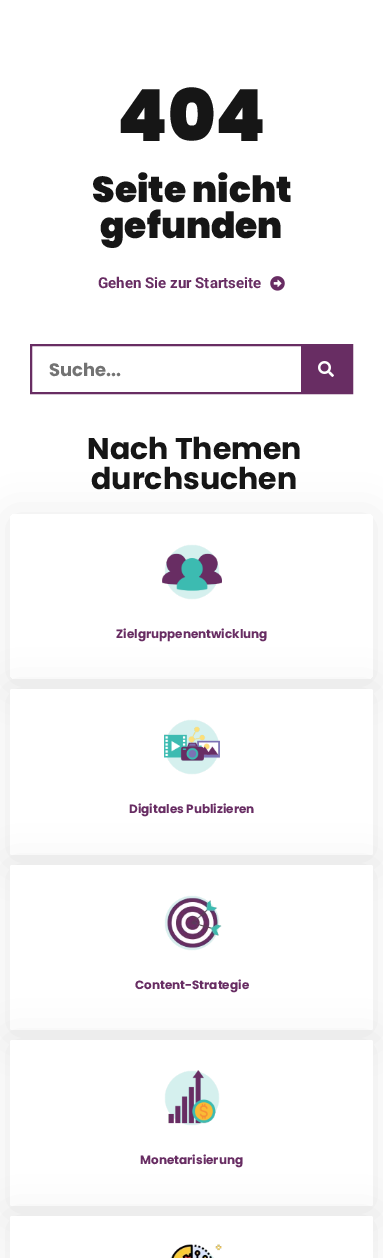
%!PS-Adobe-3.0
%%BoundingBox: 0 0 383 1258
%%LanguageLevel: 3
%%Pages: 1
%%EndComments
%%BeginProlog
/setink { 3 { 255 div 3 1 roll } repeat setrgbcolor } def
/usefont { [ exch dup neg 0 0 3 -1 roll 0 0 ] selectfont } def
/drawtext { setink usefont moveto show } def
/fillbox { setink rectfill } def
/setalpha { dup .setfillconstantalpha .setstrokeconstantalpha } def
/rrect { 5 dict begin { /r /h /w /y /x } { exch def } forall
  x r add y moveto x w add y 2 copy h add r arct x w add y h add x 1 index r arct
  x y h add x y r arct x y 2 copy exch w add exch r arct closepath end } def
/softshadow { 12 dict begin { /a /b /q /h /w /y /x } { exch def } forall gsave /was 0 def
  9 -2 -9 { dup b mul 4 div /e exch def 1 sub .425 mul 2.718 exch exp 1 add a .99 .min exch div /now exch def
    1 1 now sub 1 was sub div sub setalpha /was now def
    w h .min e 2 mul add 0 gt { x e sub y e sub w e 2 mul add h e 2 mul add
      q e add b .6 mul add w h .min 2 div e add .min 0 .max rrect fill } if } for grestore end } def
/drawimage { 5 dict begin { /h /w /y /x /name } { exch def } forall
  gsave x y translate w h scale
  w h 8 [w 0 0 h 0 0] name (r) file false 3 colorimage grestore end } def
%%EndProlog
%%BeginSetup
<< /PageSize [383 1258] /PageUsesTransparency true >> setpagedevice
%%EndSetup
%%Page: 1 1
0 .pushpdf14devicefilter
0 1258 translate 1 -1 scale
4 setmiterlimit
0 0 383 1258 255 255 255 fillbox
(404) 117 141 /Poppins-Black 72 22 22 22 drawtext
(Seite nicht) 92 202 /Poppins-Black 36 22 22 22 drawtext
(gefunden) 100 238 /Poppins-Black 36 22 22 22 drawtext
(Gehen Sie zur Startseite) 98 288 /Roboto-Bold 15 104 45 99 drawtext
(assets/img1.rgb) 270 276 15 15 drawimage
2 setlinewidth
31 345 321 48 rectstroke
(Suche...) 49 376 /Poppins-Bold 18 115 115 115 drawtext
301 346 50 46 104 45 99 fillbox
(assets/img2.rgb) 318 361 16 16 drawimage
(Nach Themen) 87 459 /Poppins-Bold 30 22 22 22 drawtext
(durchsuchen) 91 489 /Poppins-Bold 30 22 22 22 drawtext
gsave
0 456 moveto 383 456 lineto 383 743 lineto 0 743 lineto closepath 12 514 moveto 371 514 lineto 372 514 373 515 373 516 curveto 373 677 lineto 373 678 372 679 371 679 curveto 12 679 lineto 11 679 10 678 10 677 curveto 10 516 lineto 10 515 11 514 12 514 curveto closepath eoclip newpath
36 36 36 setink
10 517 363 165 2 20 0.1 softshadow
grestore
(assets/img3.rgb) 162 544 60 56 drawimage
(Zielgruppenentwicklung) 116 638 /Poppins-Bold 12 104 45 99 drawtext
36 36 36 setink
10 692 363 166 2 20 0.1 softshadow
255 255 255 setink
10 689 363 166 2 rrect fill
(assets/img4.rgb) 164 719 56 56 drawimage
(Digitales Publizieren) 129 813 /Poppins-Bold 12 104 45 99 drawtext
36 36 36 setink
10 868 363 165 2 20 0.1 softshadow
255 255 255 setink
10 865 363 165 2 rrect fill
(assets/img5.rgb) 164 895 58 56 drawimage
(Content-Strategie) 135 989 /Poppins-Bold 12 104 45 99 drawtext
36 36 36 setink
10 1043 363 166 2 20 0.1 softshadow
255 255 255 setink
10 1040 363 166 2 rrect fill
(assets/img6.rgb) 164 1070 56 56 drawimage
(Monetarisierung) 140 1164 /Poppins-Bold 12 104 45 99 drawtext
36 36 36 setink
10 1219 363 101 2 20 0.1 softshadow
255 255 255 setink
10 1216 363 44 2 rrect fill
(assets/img7.rgb) 170 1244 52 14 drawimage
.poppdf14devicefilter showpage
%%EOF
